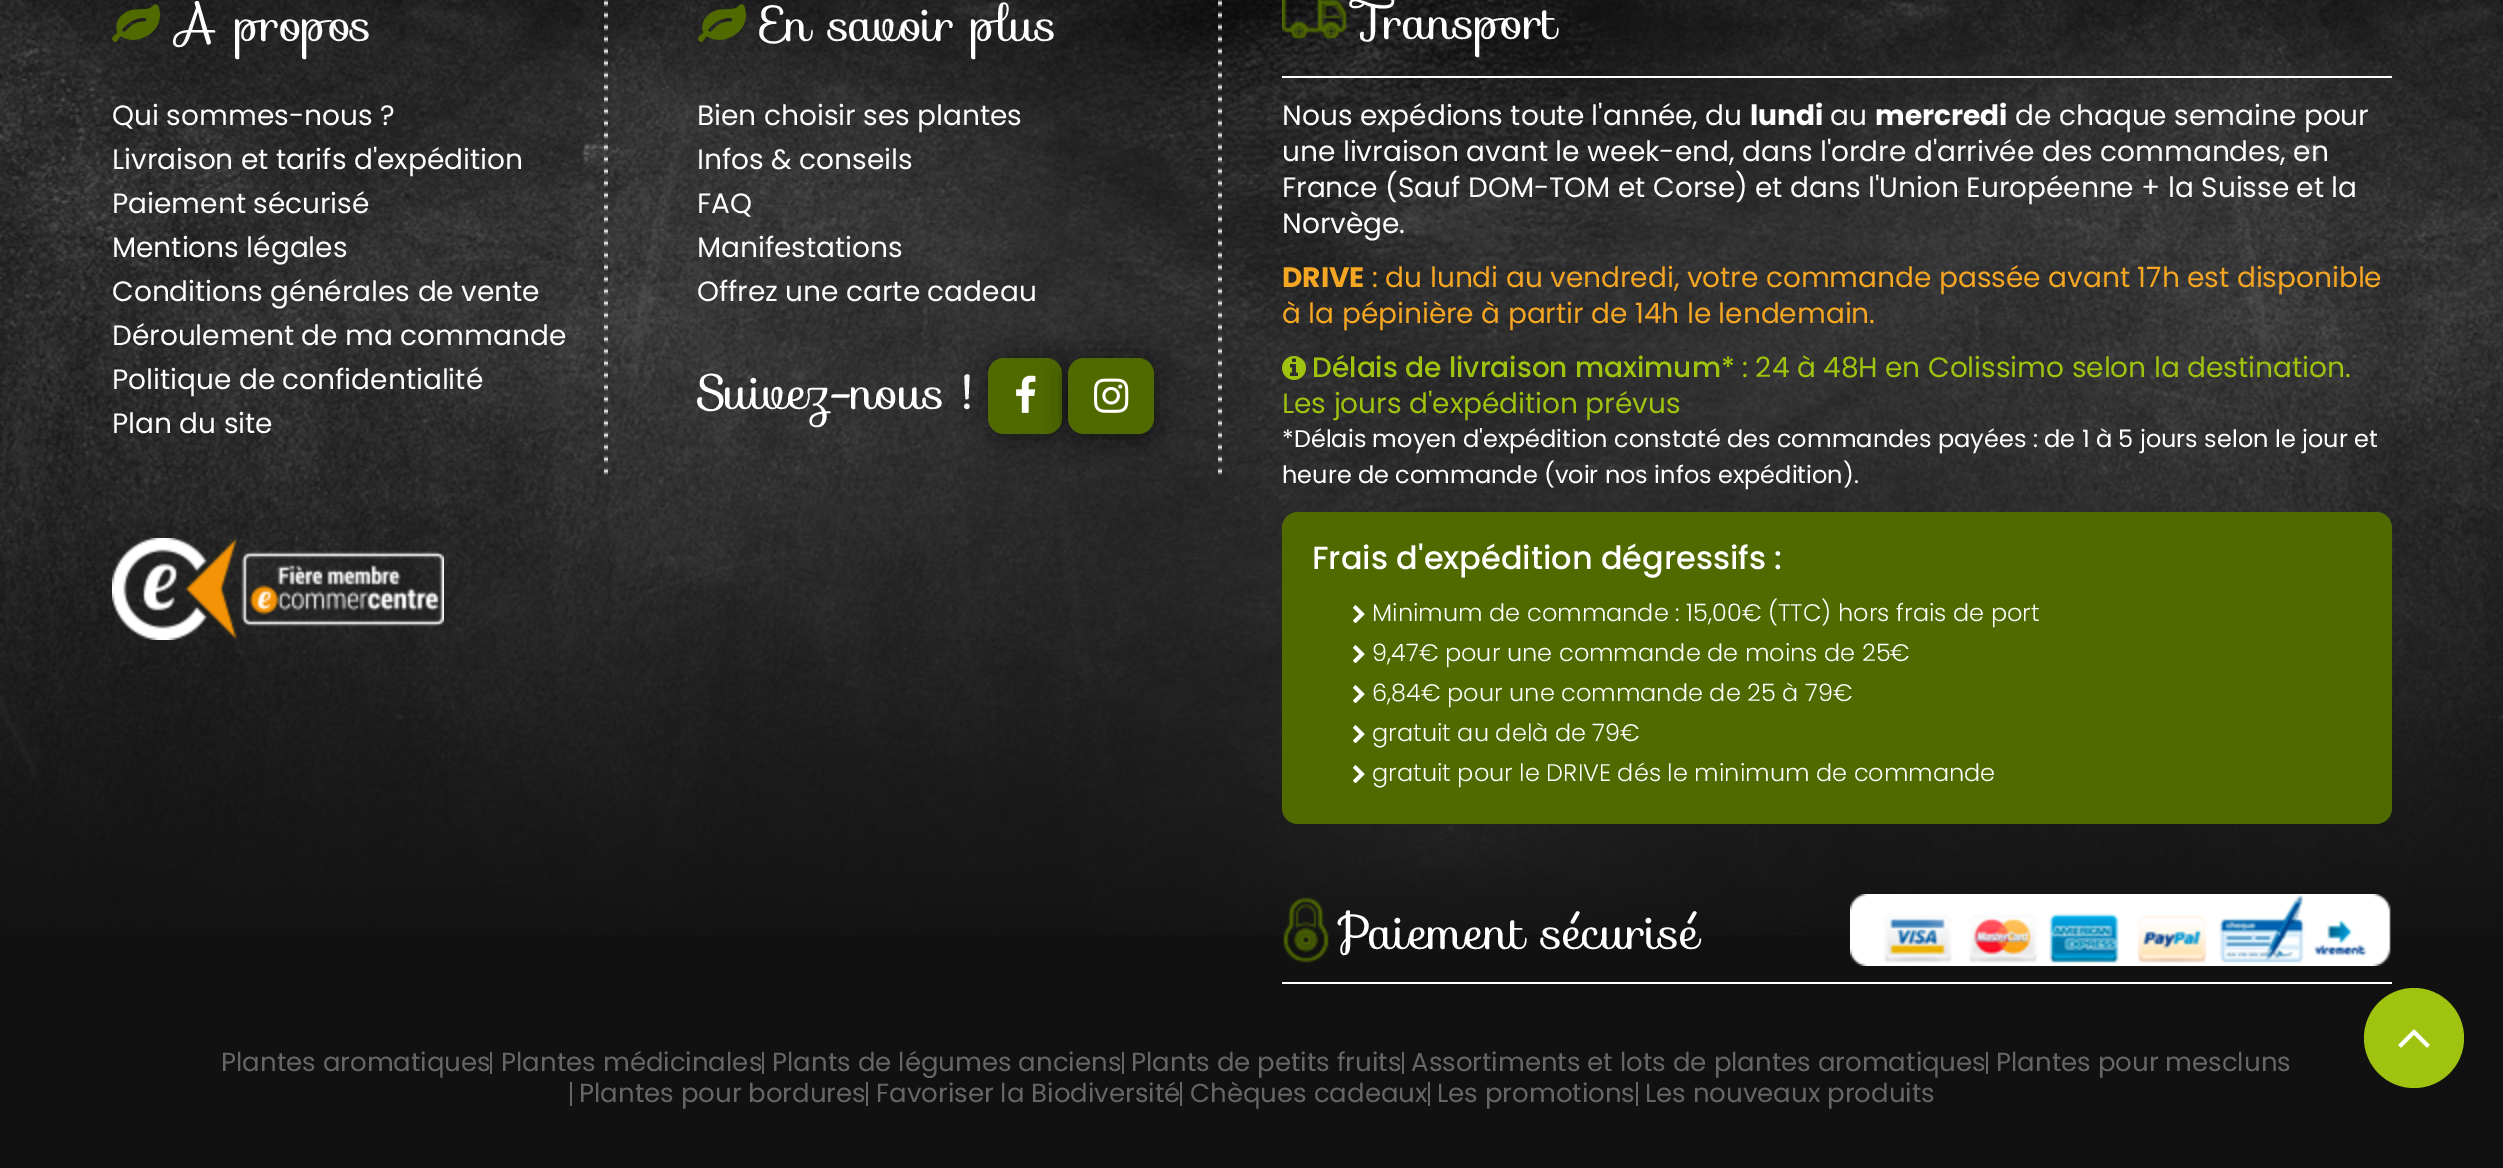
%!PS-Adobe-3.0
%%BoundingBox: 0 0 2503 1168
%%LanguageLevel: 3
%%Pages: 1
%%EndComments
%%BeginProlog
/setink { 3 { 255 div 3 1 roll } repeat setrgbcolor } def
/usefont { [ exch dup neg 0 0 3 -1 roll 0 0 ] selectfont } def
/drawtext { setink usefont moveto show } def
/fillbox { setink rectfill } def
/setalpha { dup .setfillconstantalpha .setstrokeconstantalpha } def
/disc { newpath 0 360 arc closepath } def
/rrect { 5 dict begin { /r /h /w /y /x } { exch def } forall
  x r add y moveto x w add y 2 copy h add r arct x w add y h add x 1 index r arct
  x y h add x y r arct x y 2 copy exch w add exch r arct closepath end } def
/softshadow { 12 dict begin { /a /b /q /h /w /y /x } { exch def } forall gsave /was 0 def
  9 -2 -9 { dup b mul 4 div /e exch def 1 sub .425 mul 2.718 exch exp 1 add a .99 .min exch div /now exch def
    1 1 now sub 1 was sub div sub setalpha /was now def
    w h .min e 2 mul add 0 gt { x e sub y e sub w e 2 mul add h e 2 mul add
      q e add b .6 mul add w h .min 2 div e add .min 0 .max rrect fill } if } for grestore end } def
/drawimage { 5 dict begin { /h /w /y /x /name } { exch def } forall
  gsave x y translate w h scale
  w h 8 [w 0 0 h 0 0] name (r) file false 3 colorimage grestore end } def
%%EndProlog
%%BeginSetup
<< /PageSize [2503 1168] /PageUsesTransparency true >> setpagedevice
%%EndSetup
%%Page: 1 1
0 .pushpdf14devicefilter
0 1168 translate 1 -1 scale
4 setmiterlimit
0 0 2503 1168 17 17 17 fillbox
(assets/img1.rgb) 0 0 2503 935 drawimage
(assets/img2.rgb) 604 0 4 475 drawimage
(assets/img3.rgb) 112 4 48 38 drawimage
(A propos) 176 41 /Sofia-Regular 48 255 255 255 drawtext
(Qui sommes-nous ?) 112 125 /Poppins-Regular 28 255 255 255 drawtext
(Livraison et tarifs d'expédition) 112 169 /Poppins-Regular 28 255 255 255 drawtext
(Paiement sécurisé) 112 213 /Poppins-Regular 28 255 255 255 drawtext
(Mentions légales) 112 257 /Poppins-Regular 28 255 255 255 drawtext
(Conditions générales de vente) 112 301 /Poppins-Regular 28 255 255 255 drawtext
(Déroulement de ma commande) 112 345 /Poppins-Regular 28 255 255 255 drawtext
(Politique de confidentialité) 112 389 /Poppins-Regular 28 255 255 255 drawtext
(Plan du site) 112 433 /Poppins-Regular 28 255 255 255 drawtext
(assets/img4.rgb) 112 538 332 102 drawimage
(assets/img5.rgb) 1218 0 4 475 drawimage
(assets/img6.rgb) 698 4 48 38 drawimage
(En savoir plus) 761 41 /Sofia-Regular 48 255 255 255 drawtext
(Bien choisir ses plantes) 697 125 /Poppins-Regular 28 255 255 255 drawtext
(Infos & conseils) 697 169 /Poppins-Regular 28 255 255 255 drawtext
(FAQ) 697 213 /Poppins-Regular 28 255 255 255 drawtext
(Manifestations) 697 257 /Poppins-Regular 28 255 255 255 drawtext
(Offrez une carte cadeau) 697 301 /Poppins-Regular 28 255 255 255 drawtext
(Suivez-nous !) 697 409 /Sofia-Regular 48 255 255 255 drawtext
0 0 0 setink
990 360 74 76 16 16 0.5 softshadow
80 106 0 setink
988 358 74 76 16 rrect fill
(assets/img7.rgb) 1016 375 20 38 drawimage
0 0 0 setink
1070 360 86 76 16 16 0.5 softshadow
80 106 0 setink
1068 358 86 76 16 rrect fill
(assets/img8.rgb) 1094 378 35 35 drawimage
1282 76 1110 2 255 255 255 fillbox
(assets/img9.rgb) 1282 0 65 40 drawimage
(Transport) 1354 39 /Sofia-Regular 48 255 255 255 drawtext
(Nous expédions toute l'année, du) 1282 125 /Poppins-Regular 28 255 255 255 drawtext
(lundi) 1750 125 /Poppins-Bold 28 255 255 255 drawtext
(au) 1830 125 /Poppins-Regular 28 255 255 255 drawtext
(mercredi) 1875 125 /Poppins-Bold 28 255 255 255 drawtext
(de chaque semaine pour) 2015 125 /Poppins-Regular 28 255 255 255 drawtext
(une livraison avant le week-end, dans l'ordre d'arrivée des commandes, en) 1282 161 /Poppins-Regular 28 255 255 255 drawtext
(France \(Sauf DOM-TOM et Corse\) et dans l'Union Européenne + la Suisse et la) 1282 197 /Poppins-Regular 28 255 255 255 drawtext
(Norvège.) 1282 233 /Poppins-Regular 28 255 255 255 drawtext
(DRIVE) 1282 287 /Poppins-Bold 28 245 166 35 drawtext
(: du lundi au vendredi, votre commande passée avant 17h est disponible) 1372 287 /Poppins-Regular 28 245 166 35 drawtext
(à la pépinière à partir de 14h le lendemain.) 1282 323 /Poppins-Regular 28 245 166 35 drawtext
(assets/img10.rgb) 1282 356 24 24 drawimage
(Délais de livraison maximum*) 1312 377 /Poppins-Medium 28 159 195 15 drawtext
(: 24 à 48H en Colissimo selon la destination.) 1742 377 /Poppins-Regular 28 159 195 15 drawtext
(Les jours d'expédition prévus) 1282 413 /Poppins-Regular 28 159 195 15 drawtext
(*Délais moyen d'expédition constaté des commandes payées : de 1 à 5 jours selon le jour et) 1282 447 /Poppins-Regular 24 255 255 255 drawtext
(heure de commande \(voir nos infos expédition\).) 1282 483 /Poppins-Regular 24 255 255 255 drawtext
80 106 0 setink
1282 512 1110 312 16 rrect fill
(Frais d'expédition dégressifs :) 1312 569 /Poppins-Medium 32 255 255 255 drawtext
(assets/img11.rgb) 1353 605 12 19 drawimage
(Minimum de commande : 15,00€ \(TTC\) hors frais de port) 1372 621 /Poppins-Light 24 255 255 255 drawtext
(assets/img11.rgb) 1353 645 12 19 drawimage
(9,47€ pour une commande de moins de 25€) 1372 661 /Poppins-Light 24 255 255 255 drawtext
(assets/img11.rgb) 1353 685 12 19 drawimage
(6,84€ pour une commande de 25 à 79€) 1372 701 /Poppins-Light 24 255 255 255 drawtext
(assets/img11.rgb) 1353 725 12 19 drawimage
(gratuit au delà de 79€) 1372 741 /Poppins-Light 24 255 255 255 drawtext
(assets/img11.rgb) 1353 765 12 19 drawimage
(gratuit pour le DRIVE dés le minimum de commande) 1372 781 /Poppins-Light 24 255 255 255 drawtext
1282 982 1110 2 255 255 255 fillbox
(assets/img12.rgb) 1283 897 46 66 drawimage
(Paiement sécurisé) 1338 949 /Sofia-Regular 48 255 255 255 drawtext
(assets/img13.rgb) 1850 894 541 72 drawimage
(Plantes aromatiques) 221 1071 /Poppins-Regular 26 102 102 102 drawtext
490 1052 2 22 102 102 102 fillbox
(Plantes médicinales) 501 1071 /Poppins-Regular 26 102 102 102 drawtext
762 1052 2 22 102 102 102 fillbox
(Plants de légumes anciens) 772 1071 /Poppins-Regular 26 102 102 102 drawtext
1122 1052 2 22 102 102 102 fillbox
(Plants de petits fruits) 1131 1071 /Poppins-Regular 26 102 102 102 drawtext
1402 1052 2 22 102 102 102 fillbox
(Assortiments et lots de plantes aromatiques) 1411 1071 /Poppins-Regular 26 102 102 102 drawtext
1986 1052 2 22 102 102 102 fillbox
(Plantes pour mescluns) 1996 1071 /Poppins-Regular 26 102 102 102 drawtext
570 1082 2 24 102 102 102 fillbox
(Plantes pour bordures) 579 1102 /Poppins-Regular 26 102 102 102 drawtext
866 1082 2 24 102 102 102 fillbox
(Favoriser la Biodiversité) 876 1102 /Poppins-Regular 26 102 102 102 drawtext
1180 1082 2 24 102 102 102 fillbox
(Chèques cadeaux) 1190 1102 /Poppins-Regular 26 102 102 102 drawtext
1428 1082 2 24 102 102 102 fillbox
(Les promotions) 1437 1102 /Poppins-Regular 26 102 102 102 drawtext
1636 1082 2 24 102 102 102 fillbox
(Les nouveaux produits) 1645 1102 /Poppins-Regular 26 102 102 102 drawtext
159 195 15 setink
2414 1038 50 disc fill
(assets/img14.rgb) 2398 1029 32 19 drawimage
.poppdf14devicefilter showpage
%%EOF
